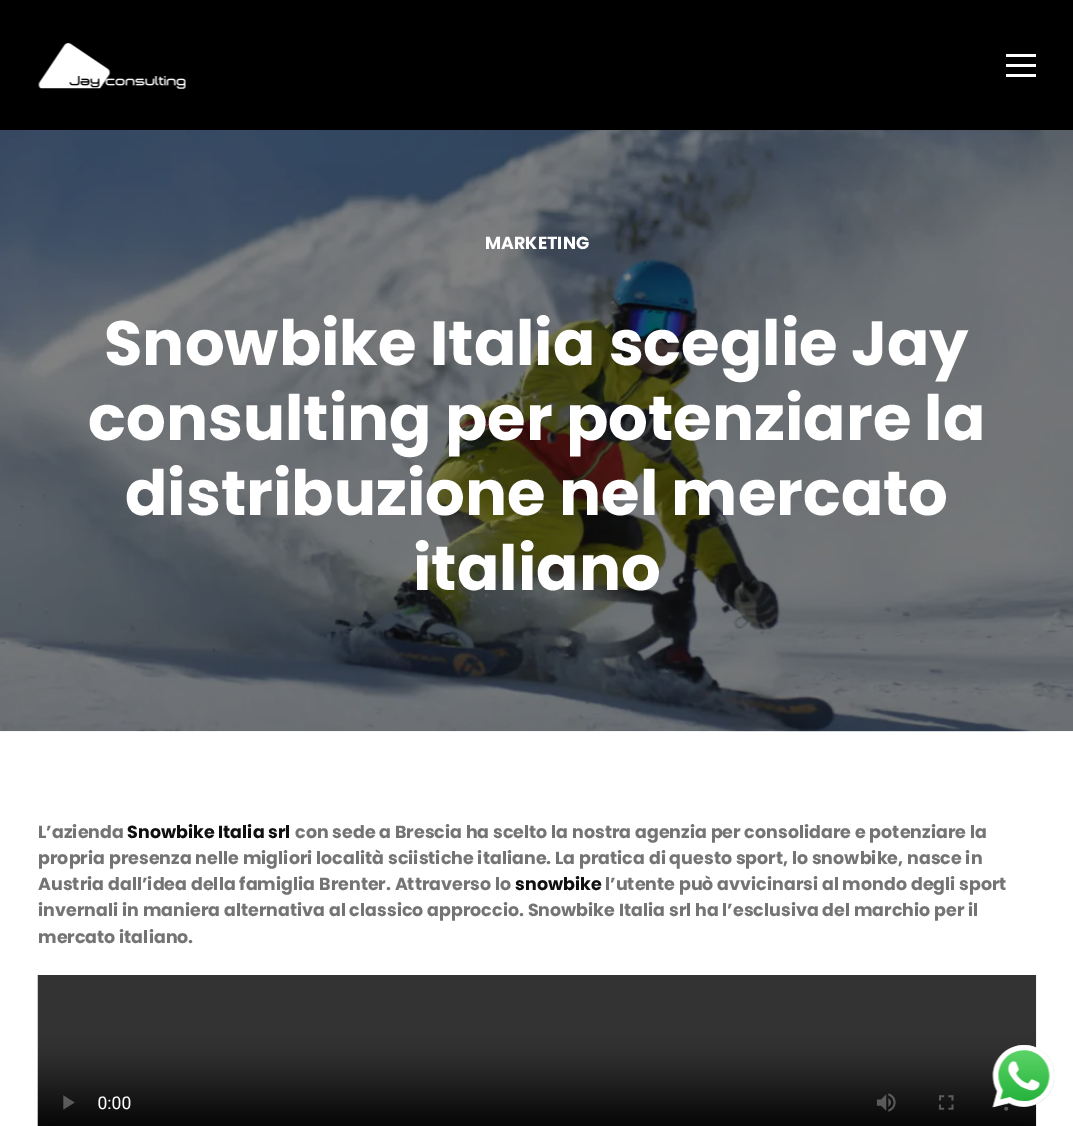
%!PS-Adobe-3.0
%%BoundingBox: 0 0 1073 1126
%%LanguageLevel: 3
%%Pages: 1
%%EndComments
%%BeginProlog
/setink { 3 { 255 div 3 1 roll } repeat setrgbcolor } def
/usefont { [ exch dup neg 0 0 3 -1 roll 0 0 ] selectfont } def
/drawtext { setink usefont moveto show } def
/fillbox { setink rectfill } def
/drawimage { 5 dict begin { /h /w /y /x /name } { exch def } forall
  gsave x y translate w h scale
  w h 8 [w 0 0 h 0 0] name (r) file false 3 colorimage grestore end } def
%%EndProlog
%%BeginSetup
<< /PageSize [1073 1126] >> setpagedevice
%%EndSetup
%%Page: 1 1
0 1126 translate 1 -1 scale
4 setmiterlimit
0 0 1073 1126 255 255 255 fillbox
0 0 1073 130 0 0 0 fillbox
(assets/img1.rgb) 38 43 148 46 drawimage
1006 64 30 3 255 255 255 fillbox
1006 54 30 3 255 255 255 fillbox
1006 74 30 3 255 255 255 fillbox
(assets/img2.rgb) 0 130 1073 602 drawimage
(MARKETING) 485 249 /Poppins-Bold 17.5 255 255 255 drawtext
(Snowbike Italia sceglie Jay) 104 365 /Poppins-Bold 62.5 255 255 255 drawtext
(consulting per potenziare la) 88 440 /Poppins-Bold 62.5 255 255 255 drawtext
(distribuzione nel mercato) 125 515 /Poppins-Bold 62.5 255 255 255 drawtext
(italiano) 413 590 /Poppins-Bold 62.5 255 255 255 drawtext
(L’azienda) 38 838 /Poppins-Bold 17.5 116 116 116 drawtext
(Snowbike Italia srl) 127 838 /Poppins-Bold 17.5 16 16 16 drawtext
(con sede a Brescia ha scelto la nostra agenzia per consolidare e potenziare la) 295 838 /Poppins-Bold 17.5 116 116 116 drawtext
(propria presenza nelle migliori località sciistiche italiane. La pratica di questo sport, lo snowbike, nasce in) 38 864 /Poppins-Bold 17.5 116 116 116 drawtext
(Austria dall’idea della famiglia Brenter. Attraverso lo) 38 890 /Poppins-Bold 17.5 116 116 116 drawtext
(snowbike) 515 890 /Poppins-Bold 17.5 16 16 16 drawtext
(l’utente può avvicinarsi al mondo degli sport) 605 890 /Poppins-Bold 17.5 116 116 116 drawtext
(invernali in maniera alternativa al classico approccio. Snowbike Italia srl ha l’esclusiva del marchio per il) 38 916 /Poppins-Bold 17.5 116 116 116 drawtext
(mercato italiano.) 38 943 /Poppins-Bold 17.5 116 116 116 drawtext
(assets/img3.rgb) 37 975 1000 151 drawimage
(assets/img4.rgb) 992 1045 63 63 drawimage
showpage
%%EOF
